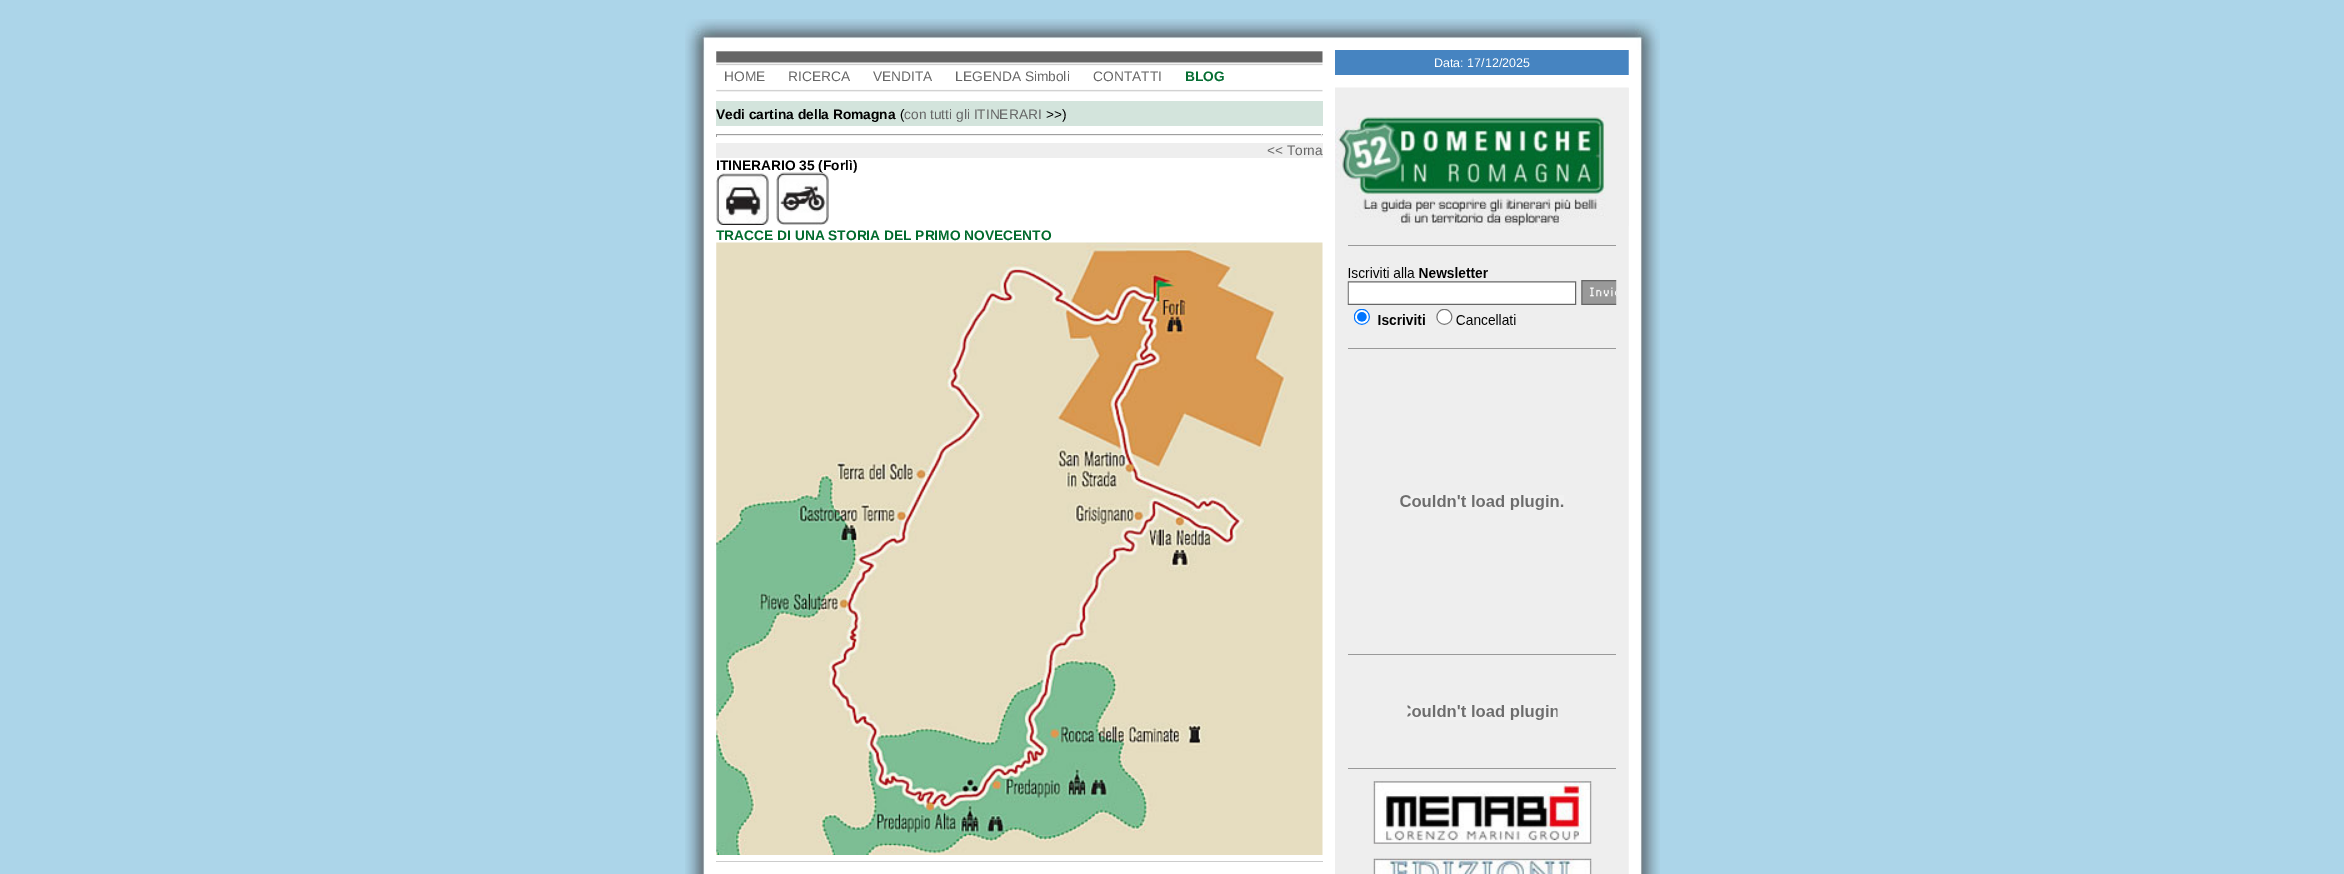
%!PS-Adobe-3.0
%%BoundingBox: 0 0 2344 874
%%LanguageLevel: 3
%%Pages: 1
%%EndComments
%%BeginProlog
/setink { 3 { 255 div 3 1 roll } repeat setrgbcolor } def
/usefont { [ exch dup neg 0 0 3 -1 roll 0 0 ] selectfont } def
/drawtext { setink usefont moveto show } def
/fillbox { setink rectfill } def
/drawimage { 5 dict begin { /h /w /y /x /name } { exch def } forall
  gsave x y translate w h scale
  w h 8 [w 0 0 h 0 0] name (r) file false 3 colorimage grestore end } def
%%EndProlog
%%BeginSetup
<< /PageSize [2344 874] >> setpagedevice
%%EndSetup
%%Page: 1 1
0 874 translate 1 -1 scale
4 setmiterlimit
0 0 2344 874 172 213 233 fillbox
(assets/img1.rgb) 685 19 975 31 drawimage
(assets/img2.rgb) 685 50 31 824 drawimage
1335 88 294 786 238 238 238 fillbox
1335 50 294 25 70 132 193 fillbox
(Data: 17/12/2025) 1434 67 /LiberationSans-Regular 12.5 255 255 255 drawtext
1335 75 294 13 255 255 255 fillbox
(assets/img9.rgb) 1628 50 32 824 drawimage
(assets/img3.rgb) 1335 87 294 140 drawimage
1348 245 268 1 153 153 153 fillbox
(assets/img4.rgb) 1347 267 270 58 drawimage
1348 348 268 1 153 153 153 fillbox
(assets/img5.rgb) 1400 495 164 15 drawimage
1348 654 268 1 153 153 153 fillbox
(assets/img6.rgb) 1407 705 151 15 drawimage
1348 768 268 1 153 153 153 fillbox
(assets/img7.rgb) 1373 781 219 63 drawimage
(assets/img8.rgb) 1373 858 219 16 drawimage
716 50 619 824 255 255 255 fillbox
(assets/img10.rgb) 716 51 607 41 drawimage
(HOME) 724 81 /LiberationSans-Regular 13.75 102 102 102 drawtext
(RICERCA) 788 81 /LiberationSans-Regular 13.75 102 102 102 drawtext
(VENDITA) 873 81 /LiberationSans-Regular 13.75 102 102 102 drawtext
(LEGENDA Simboli) 955 81 /LiberationSans-Regular 13.75 102 102 102 drawtext
(CONTATTI) 1093 81 /LiberationSans-Regular 13.75 102 102 102 drawtext
(BLOG) 1185 81 /LiberationSans-Bold 13.75 6 110 51 drawtext
716 101 607 25 211 228 220 fillbox
(Vedi cartina della Romagna) 716 119 /LiberationSans-Bold 13.75 0 0 0 drawtext
(\() 900 119 /LiberationSans-Regular 13.75 0 0 0 drawtext
(con tutti gli ITINERARI) 904 119 /LiberationSans-Regular 13.75 102 102 102 drawtext
(>>\)) 1046 119 /LiberationSans-Regular 13.75 0 0 0 drawtext
716 134 607 1 159 159 159 fillbox
1321 134 1 3 238 238 238 fillbox
716 135 607 1 238 238 238 fillbox
716 134 1 3 159 159 159 fillbox
716 143 607 15 238 238 238 fillbox
(<< Torna) 1267 155 /LiberationSans-Regular 13.75 102 102 102 drawtext
(ITINERARIO 35 \(Forlì\)) 716 170 /LiberationSans-Bold 13.75 0 0 0 drawtext
(assets/img11.rgb) 716 173 53 52 drawimage
(assets/img12.rgb) 776 172 53 53 drawimage
(TRACCE DI UNA STORIA DEL PRIMO NOVECENTO) 716 240 /LiberationSans-Bold 13.75 1 107 45 drawtext
(assets/img13.rgb) 716 242 607 613 drawimage
716 861 607 1 204 204 204 fillbox
showpage
%%EOF
